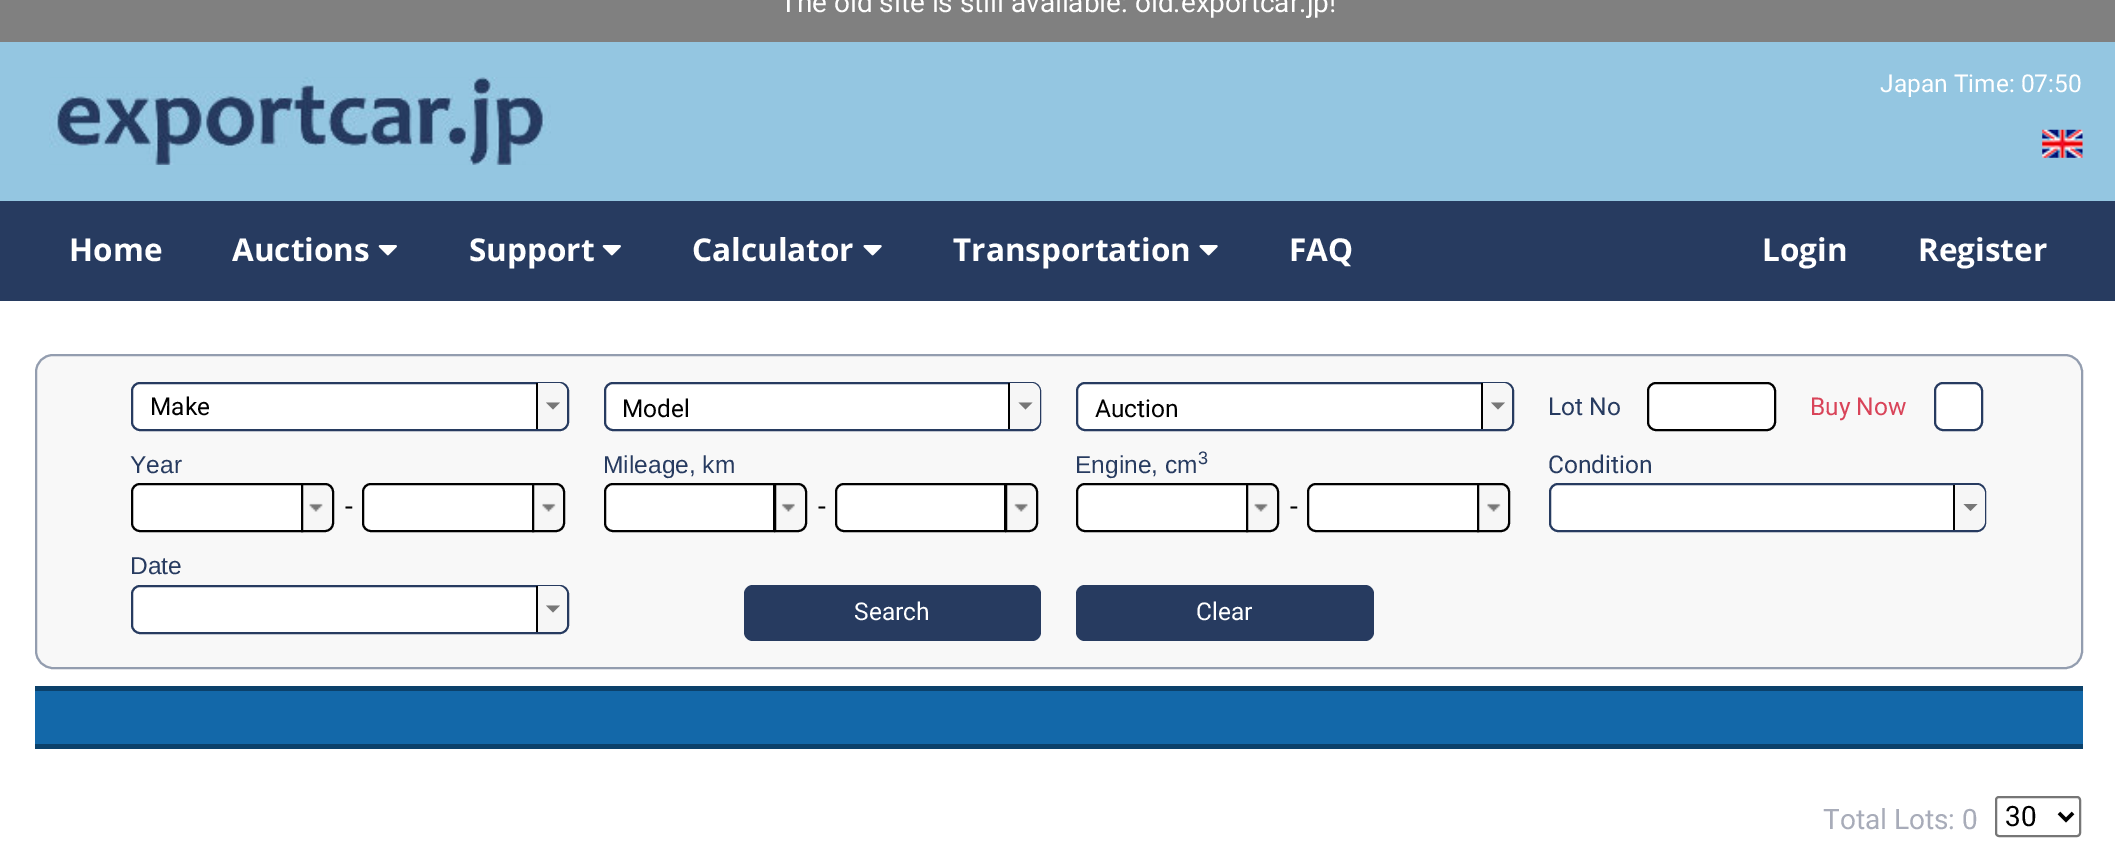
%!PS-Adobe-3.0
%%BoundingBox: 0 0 2115 852
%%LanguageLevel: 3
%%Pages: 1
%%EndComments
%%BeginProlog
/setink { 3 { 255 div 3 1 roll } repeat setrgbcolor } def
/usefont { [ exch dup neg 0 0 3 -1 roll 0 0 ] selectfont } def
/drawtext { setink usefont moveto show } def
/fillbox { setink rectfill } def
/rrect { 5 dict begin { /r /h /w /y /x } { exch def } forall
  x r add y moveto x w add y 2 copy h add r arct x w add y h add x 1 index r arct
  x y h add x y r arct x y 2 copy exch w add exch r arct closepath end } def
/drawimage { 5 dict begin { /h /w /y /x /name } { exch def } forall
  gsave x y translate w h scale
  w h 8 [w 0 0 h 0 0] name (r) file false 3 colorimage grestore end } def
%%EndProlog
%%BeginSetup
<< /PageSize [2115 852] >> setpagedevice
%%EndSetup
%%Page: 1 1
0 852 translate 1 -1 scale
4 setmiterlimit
0 0 2115 852 255 255 255 fillbox
0 0 2115 42 128 128 128 fillbox
(The old site is still available: old.exportcar.jp!) 780 12 /Roboto-Regular 28 255 255 255 drawtext
0 42 2115 159 148 198 225 fillbox
(assets/img1.rgb) 49 77 502 88 drawimage
(Japan Time: 07:50) 1880 92 /Roboto-Regular 24.5 255 255 255 drawtext
(assets/img2.rgb) 2042 129 41 29 drawimage
0 201 2115 100 39 59 96 fillbox
(Home) 69 261 /OpenSans-Bold 31.5 255 255 255 drawtext
(Auctions) 232 261 /OpenSans-Bold 31.5 255 255 255 drawtext
(assets/img3.rgb) 378 245 19 11 drawimage
(Support) 469 261 /OpenSans-Bold 31.5 255 255 255 drawtext
(assets/img3.rgb) 602 245 19 11 drawimage
(Calculator) 692 261 /OpenSans-Bold 31.5 255 255 255 drawtext
(assets/img4.rgb) 863 245 19 11 drawimage
(Transportation) 953 261 /OpenSans-Bold 31.5 255 255 255 drawtext
(assets/img4.rgb) 1199 245 19 11 drawimage
(FAQ) 1289 261 /OpenSans-Bold 31.5 255 255 255 drawtext
(Login) 1762 261 /OpenSans-Bold 31.5 255 255 255 drawtext
(Register) 1918 261 /OpenSans-Bold 31.5 255 255 255 drawtext
248 248 248 setink
36 355 2046 313 17 rrect gsave fill grestore
147 157 175 setink
2 setlinewidth
stroke
255 255 255 setink
132 383 436 47 8 rrect gsave fill grestore
39 59 96 setink
stroke
(Make) 150 415 /Roboto-Regular 24.5 0 0 0 drawtext
246 246 246 setink
536 383 moveto 558 383 lineto 563 383 567 387 567 392 curveto 567 420 lineto 567 425 563 429 558 429 curveto 536 429 lineto closepath fill
536 383 2 46 0 0 0 fillbox
119 119 119 setink
546 402.5 moveto 560 402.5 lineto 553 409.5 lineto closepath fill
255 255 255 setink
605 383 435 47 8 rrect gsave fill grestore
39 59 96 setink
stroke
(Model) 622 417 /Roboto-Regular 24.5 0 0 0 drawtext
246 246 246 setink
1008 383 moveto 1031 383 lineto 1036 383 1040 387 1040 392 curveto 1040 420 lineto 1040 425 1036 429 1031 429 curveto 1008 429 lineto closepath fill
1008 383 2 46 0 0 0 fillbox
119 119 119 setink
1018.5 402.5 moveto 1032.5 402.5 lineto 1025.5 409.5 lineto closepath fill
255 255 255 setink
1077 383 436 47 8 rrect gsave fill grestore
39 59 96 setink
stroke
(Auction) 1095 417 /Roboto-Regular 24.5 0 0 0 drawtext
246 246 246 setink
1481 383 moveto 1503 383 lineto 1508 383 1512 387 1512 392 curveto 1512 420 lineto 1512 425 1508 429 1503 429 curveto 1481 429 lineto closepath fill
1481 383 2 46 0 0 0 fillbox
119 119 119 setink
1491 402.5 moveto 1505 402.5 lineto 1498 409.5 lineto closepath fill
(Lot No) 1548 415 /Roboto-Regular 24.5 39 59 96 drawtext
255 255 255 setink
1648 383 127 47 8 rrect gsave fill grestore
0 0 0 setink
stroke
(Buy Now) 1810 415 /Roboto-Regular 24.5 217 68 89 drawtext
255 255 255 setink
1935 383 47 47 8 rrect gsave fill grestore
39 59 96 setink
stroke
(Year) 130 473 /LiberationSans-Regular 24.5 39 59 96 drawtext
255 255 255 setink
140 484 moveto 302 484 lineto 302 531 lineto 140 531 lineto 135.5 531 132 527.5 132 523 curveto 132 492 lineto 132 487.5 135.5 484 140 484 curveto closepath gsave fill grestore
0 0 0 setink
stroke
246 246 246 setink
302 484 moveto 325 484 lineto 329.5 484 333 487.5 333 492 curveto 333 523 lineto 333 527.5 329.5 531 325 531 curveto 302 531 lineto closepath gsave fill grestore
0 0 0 setink
stroke
(assets/img5.rgb) 309 503 14 9 drawimage
(-) 345 516 /Roboto-Regular 28 0 0 0 drawtext
255 255 255 setink
371 484 moveto 533 484 lineto 533 531 lineto 371 531 lineto 366.5 531 363 527.5 363 523 curveto 363 492 lineto 363 487.5 366.5 484 371 484 curveto closepath gsave fill grestore
0 0 0 setink
stroke
246 246 246 setink
533 484 moveto 556 484 lineto 560.5 484 564 487.5 564 492 curveto 564 523 lineto 564 527.5 560.5 531 556 531 curveto 533 531 lineto closepath gsave fill grestore
0 0 0 setink
stroke
(assets/img6.rgb) 542 503 14 9 drawimage
(Mileage, km) 603 473 /LiberationSans-Regular 24.5 39 59 96 drawtext
255 255 255 setink
613 484 moveto 774 484 lineto 774 531 lineto 613 531 lineto 608.5 531 605 527.5 605 523 curveto 605 492 lineto 605 487.5 608.5 484 613 484 curveto closepath gsave fill grestore
0 0 0 setink
stroke
246 246 246 setink
775 484 moveto 798 484 lineto 802.5 484 806 487.5 806 492 curveto 806 523 lineto 806 527.5 802.5 531 798 531 curveto 775 531 lineto closepath gsave fill grestore
0 0 0 setink
stroke
(assets/img7.rgb) 781 503 14 9 drawimage
(-) 818 516 /Roboto-Regular 28 0 0 0 drawtext
255 255 255 setink
844 484 moveto 1005 484 lineto 1005 531 lineto 844 531 lineto 839.5 531 836 527.5 836 523 curveto 836 492 lineto 836 487.5 839.5 484 844 484 curveto closepath gsave fill grestore
0 0 0 setink
stroke
246 246 246 setink
1006 484 moveto 1029 484 lineto 1033.5 484 1037 487.5 1037 492 curveto 1037 523 lineto 1037 527.5 1033.5 531 1029 531 curveto 1006 531 lineto closepath gsave fill grestore
0 0 0 setink
stroke
(assets/img8.rgb) 1014 503 14 9 drawimage
(Engine, cm) 1075 473 /LiberationSans-Regular 24.5 39 59 96 drawtext
(3) 1198 464 /LiberationSans-Regular 18 39 59 96 drawtext
255 255 255 setink
1085 484 moveto 1247 484 lineto 1247 531 lineto 1085 531 lineto 1080.5 531 1077 527.5 1077 523 curveto 1077 492 lineto 1077 487.5 1080.5 484 1085 484 curveto closepath gsave fill grestore
0 0 0 setink
stroke
246 246 246 setink
1247 484 moveto 1270 484 lineto 1274.5 484 1278 487.5 1278 492 curveto 1278 523 lineto 1278 527.5 1274.5 531 1270 531 curveto 1247 531 lineto closepath gsave fill grestore
0 0 0 setink
stroke
(assets/img5.rgb) 1254 503 14 9 drawimage
(-) 1290 516 /Roboto-Regular 28 0 0 0 drawtext
255 255 255 setink
1316 484 moveto 1478 484 lineto 1478 531 lineto 1316 531 lineto 1311.5 531 1308 527.5 1308 523 curveto 1308 492 lineto 1308 487.5 1311.5 484 1316 484 curveto closepath gsave fill grestore
0 0 0 setink
stroke
246 246 246 setink
1478 484 moveto 1501 484 lineto 1505.5 484 1509 487.5 1509 492 curveto 1509 523 lineto 1509 527.5 1505.5 531 1501 531 curveto 1478 531 lineto closepath gsave fill grestore
0 0 0 setink
stroke
(assets/img9.rgb) 1487 503 14 9 drawimage
(Condition) 1548 473 /Roboto-Regular 24.5 39 59 96 drawtext
255 255 255 setink
1550 484 435 47 8 rrect gsave fill grestore
39 59 96 setink
stroke
246 246 246 setink
1953 485 moveto 1976 485 lineto 1981 485 1985 489 1985 494 curveto 1985 521 lineto 1985 526 1981 530 1976 530 curveto 1953 530 lineto closepath fill
1953 485 2 45 0 0 0 fillbox
119 119 119 setink
1963.5 504 moveto 1977.5 504 lineto 1970.5 511 lineto closepath fill
(Date) 130 574 /LiberationSans-Regular 24.5 39 59 96 drawtext
255 255 255 setink
132 586 436 47 8 rrect gsave fill grestore
39 59 96 setink
stroke
246 246 246 setink
536 586 moveto 558 586 lineto 563 586 567 590 567 595 curveto 567 623 lineto 567 628 563 632 558 632 curveto 536 632 lineto closepath fill
536 586 2 46 0 0 0 fillbox
119 119 119 setink
546 605.5 moveto 560 605.5 lineto 553 612.5 lineto closepath fill
39 59 96 setink
744 585 297 56 9 rrect fill
(Search) 854 620 /Roboto-Regular 24.5 255 255 255 drawtext
39 59 96 setink
1076 585 298 56 9 rrect fill
(Clear) 1196 620 /Roboto-Regular 24.5 255 255 255 drawtext
35 691 2048 53 19 104 169 fillbox
35 686 2048 5 11 65 107 fillbox
35 744 2048 5 11 65 107 fillbox
(Total Lots: 0) 1823 829 /Roboto-Regular 28 168 172 185 drawtext
118 118 118 setink
1996 797 84 39 3 rrect stroke
0 0 0 setink
3.5 setlinewidth
2059 813 moveto 2066 820 lineto 2073 813 lineto stroke
(30) 2005 826 /Roboto-Regular 28 0 0 0 drawtext
showpage
%%EOF
